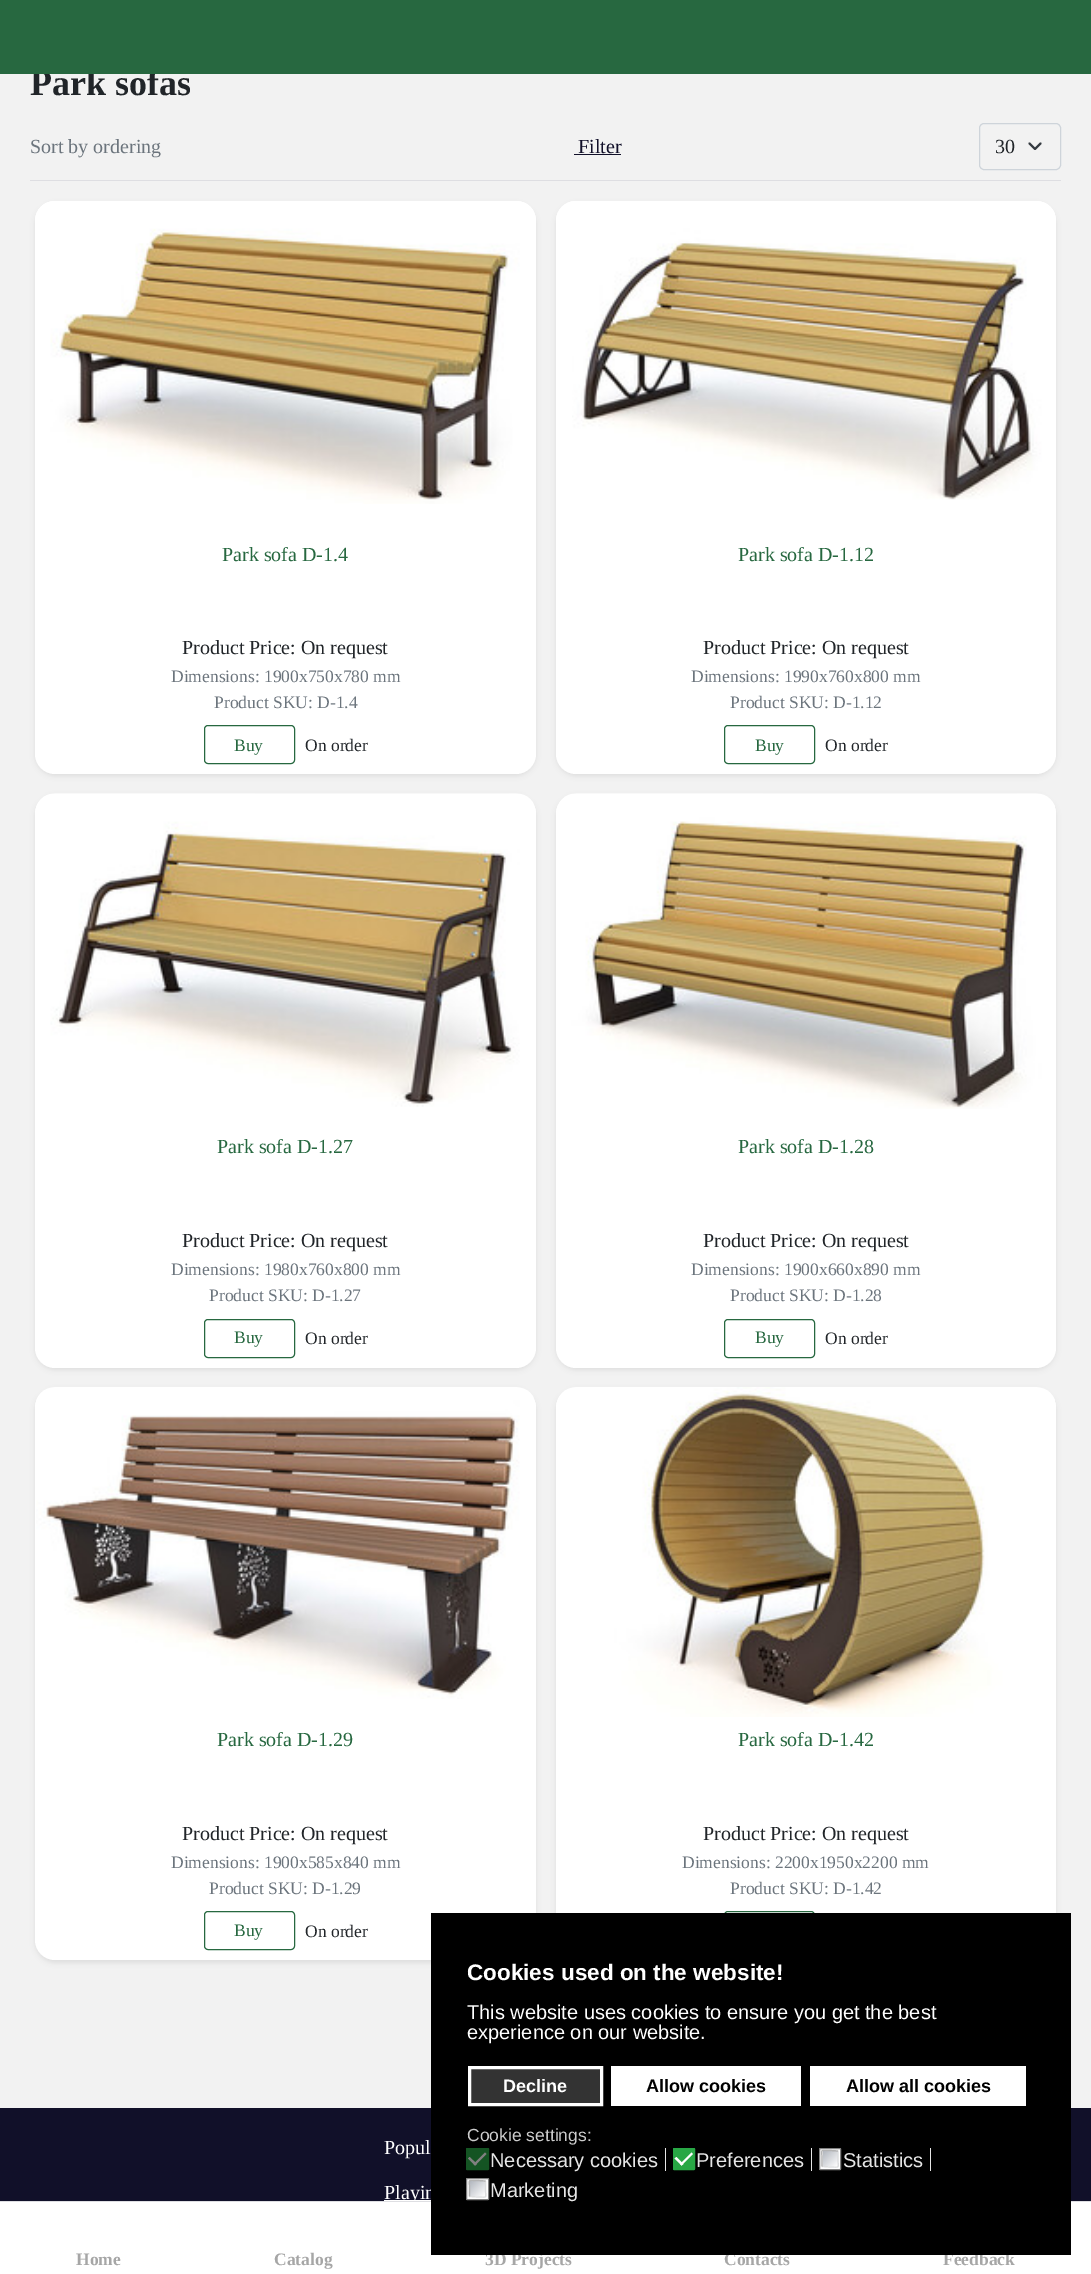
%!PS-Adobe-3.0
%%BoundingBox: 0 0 1091 2274
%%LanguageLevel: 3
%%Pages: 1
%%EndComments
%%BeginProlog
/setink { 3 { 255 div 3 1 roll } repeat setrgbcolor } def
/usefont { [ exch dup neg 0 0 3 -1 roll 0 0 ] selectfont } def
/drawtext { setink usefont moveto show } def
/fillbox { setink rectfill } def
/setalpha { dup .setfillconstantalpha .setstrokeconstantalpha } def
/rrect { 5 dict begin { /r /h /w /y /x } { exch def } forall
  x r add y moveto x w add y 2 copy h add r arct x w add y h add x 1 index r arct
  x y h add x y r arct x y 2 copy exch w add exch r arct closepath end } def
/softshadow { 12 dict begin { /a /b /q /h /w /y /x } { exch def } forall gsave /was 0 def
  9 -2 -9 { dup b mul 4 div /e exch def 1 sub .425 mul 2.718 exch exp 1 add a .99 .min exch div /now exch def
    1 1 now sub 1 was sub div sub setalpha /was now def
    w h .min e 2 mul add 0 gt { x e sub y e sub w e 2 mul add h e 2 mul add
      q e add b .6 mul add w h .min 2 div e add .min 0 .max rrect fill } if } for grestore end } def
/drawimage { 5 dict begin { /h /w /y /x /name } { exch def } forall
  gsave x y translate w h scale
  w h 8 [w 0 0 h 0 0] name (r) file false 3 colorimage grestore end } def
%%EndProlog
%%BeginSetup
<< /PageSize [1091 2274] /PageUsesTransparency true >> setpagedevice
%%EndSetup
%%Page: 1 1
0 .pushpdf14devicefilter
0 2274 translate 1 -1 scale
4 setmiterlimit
0 0 1091 2274 242 242 242 fillbox
(Park sofas) 30 95 /LiberationSerif-Bold 36 33 37 41 drawtext
0 0 1091 74 39 104 64 fillbox
30 180 1031 1 222 222 226 fillbox
(Sort by ordering) 30 153 /LiberationSerif-Regular 20 108 117 125 drawtext
(Filter) 578 153 /LiberationSerif-Regular 20 17 16 41 drawtext
574 154 47 1 17 16 41 fillbox
52 58 64 setink
1.9 setlinewidth
1 setlinecap
1 setlinejoin
1029.5 143.5 moveto 1035 149 lineto 1040.5 143.5 lineto stroke
206 212 218 setink
1 setlinewidth
0 setlinecap
0 setlinejoin
979.5 123.5 81 46 4.5 rrect stroke
(30) 995 153 /LiberationSerif-Regular 20 33 37 41 drawtext
0 0 0 setink
35 204 501 572 20 2.5 0.07 softshadow
255 255 255 setink
35 201 501 573 20 rrect fill
55 201 moveto 516 201 lineto 527 201 536 210 536 221 curveto 536 531 lineto 35 531 lineto 35 221 lineto 35 210 44 201 55 201 curveto closepath fill
(assets/img1.rgb) 38 202 496 302 drawimage
(Park sofa D-1.4) 222 561 /LiberationSerif-Regular 20 39 104 64 drawtext
(Product Price: On request) 182 654 /LiberationSerif-Regular 20 33 37 41 drawtext
(Dimensions: 1900x750x780 mm) 171 682 /LiberationSerif-Regular 17.5 108 117 125 drawtext
(Product SKU: D-1.4) 214 708 /LiberationSerif-Regular 17.5 108 117 125 drawtext
39 104 64 setink
204.5 725.5 90 38 3.5 rrect stroke
(Buy) 234 751 /LiberationSerif-Regular 17.5 39 104 64 drawtext
(On order) 305 751 /LiberationSerif-Regular 17.5 33 37 41 drawtext
0 0 0 setink
556 204 500 572 20 2.5 0.07 softshadow
255 255 255 setink
556 201 500 573 20 rrect fill
576 201 moveto 1036 201 lineto 1047 201 1056 210 1056 221 curveto 1056 531 lineto 556 531 lineto 556 221 lineto 556 210 565 201 576 201 curveto closepath fill
(assets/img2.rgb) 572 202 483 298 drawimage
(Park sofa D-1.12) 738 561 /LiberationSerif-Regular 20 39 104 64 drawtext
(Product Price: On request) 703 654 /LiberationSerif-Regular 20 33 37 41 drawtext
(Dimensions: 1990x760x800 mm) 691 682 /LiberationSerif-Regular 17.5 108 117 125 drawtext
(Product SKU: D-1.12) 730 708 /LiberationSerif-Regular 17.5 108 117 125 drawtext
39 104 64 setink
724.5 725.5 90 38 3.5 rrect stroke
(Buy) 755 751 /LiberationSerif-Regular 17.5 39 104 64 drawtext
(On order) 825 751 /LiberationSerif-Regular 17.5 33 37 41 drawtext
0 0 0 setink
35 796 501 574 20 2.5 0.07 softshadow
255 255 255 setink
35 794 501 574 20 rrect fill
55 794 moveto 516 794 lineto 527 794 536 803 536 814 curveto 536 1125 lineto 35 1125 lineto 35 814 lineto 35 803 44 794 55 794 curveto closepath fill
(assets/img3.rgb) 36 793 498 314 drawimage
(Park sofa D-1.27) 217 1153 /LiberationSerif-Regular 20 39 104 64 drawtext
(Product Price: On request) 182 1247 /LiberationSerif-Regular 20 33 37 41 drawtext
(Dimensions: 1980x760x800 mm) 171 1275 /LiberationSerif-Regular 17.5 108 117 125 drawtext
(Product SKU: D-1.27) 209 1301 /LiberationSerif-Regular 17.5 108 117 125 drawtext
39 104 64 setink
204.5 1319.5 90 38 3.5 rrect stroke
(Buy) 234 1343 /LiberationSerif-Regular 17.5 39 104 64 drawtext
(On order) 305 1344 /LiberationSerif-Regular 17.5 33 37 41 drawtext
0 0 0 setink
556 796 500 574 20 2.5 0.07 softshadow
255 255 255 setink
556 794 500 574 20 rrect fill
576 794 moveto 1036 794 lineto 1047 794 1056 803 1056 814 curveto 1056 1125 lineto 556 1125 lineto 556 814 lineto 556 803 565 794 576 794 curveto closepath fill
(assets/img4.rgb) 559 793 496 316 drawimage
(Park sofa D-1.28) 738 1153 /LiberationSerif-Regular 20 39 104 64 drawtext
(Product Price: On request) 703 1247 /LiberationSerif-Regular 20 33 37 41 drawtext
(Dimensions: 1900x660x890 mm) 691 1275 /LiberationSerif-Regular 17.5 108 117 125 drawtext
(Product SKU: D-1.28) 730 1301 /LiberationSerif-Regular 17.5 108 117 125 drawtext
39 104 64 setink
724.5 1319.5 90 38 3.5 rrect stroke
(Buy) 755 1343 /LiberationSerif-Regular 17.5 39 104 64 drawtext
(On order) 825 1344 /LiberationSerif-Regular 17.5 33 37 41 drawtext
0 0 0 setink
35 1390 501 573 20 2.5 0.07 softshadow
255 255 255 setink
35 1388 501 572 20 rrect fill
55 1388 moveto 516 1388 lineto 527 1388 536 1397 536 1408 curveto 536 1718 lineto 35 1718 lineto 35 1408 lineto 35 1397 44 1388 55 1388 curveto closepath fill
(assets/img5.rgb) 36 1387 498 312 drawimage
(Park sofa D-1.29) 217 1746 /LiberationSerif-Regular 20 39 104 64 drawtext
(Product Price: On request) 182 1840 /LiberationSerif-Regular 20 33 37 41 drawtext
(Dimensions: 1900x585x840 mm) 171 1868 /LiberationSerif-Regular 17.5 108 117 125 drawtext
(Product SKU: D-1.29) 209 1894 /LiberationSerif-Regular 17.5 108 117 125 drawtext
39 104 64 setink
204.5 1911.5 90 38 3.5 rrect stroke
(Buy) 234 1936 /LiberationSerif-Regular 17.5 39 104 64 drawtext
(On order) 305 1937 /LiberationSerif-Regular 17.5 33 37 41 drawtext
0 0 0 setink
556 1390 500 573 20 2.5 0.07 softshadow
255 255 255 setink
556 1388 500 572 20 rrect fill
576 1388 moveto 1036 1388 lineto 1047 1388 1056 1397 1056 1408 curveto 1056 1718 lineto 556 1718 lineto 556 1408 lineto 556 1397 565 1388 576 1388 curveto closepath fill
(assets/img6.rgb) 558 1387 497 330 drawimage
(Park sofa D-1.42) 738 1746 /LiberationSerif-Regular 20 39 104 64 drawtext
(Product Price: On request) 703 1840 /LiberationSerif-Regular 20 33 37 41 drawtext
(Dimensions: 2200x1950x2200 mm) 682 1868 /LiberationSerif-Regular 17.5 108 117 125 drawtext
(Product SKU: D-1.42) 730 1894 /LiberationSerif-Regular 17.5 108 117 125 drawtext
39 104 64 setink
724.5 1911.5 90 38 3.5 rrect stroke
0 2108 1091 93 17 16 41 fillbox
(Popul) 384 2154 /LiberationSerif-Regular 20 255 255 255 drawtext
384 2200 47 1 255 255 255 fillbox
(Playin) 384 2199 /LiberationSerif-Regular 20 255 255 255 drawtext
0 2202 1091 72 255 255 255 fillbox
0 2201 1091 1 222 222 226 fillbox
(Home) 76 2265 /LiberationSerif-Bold 17.5 166 166 166 drawtext
(Catalog) 274 2265 /LiberationSerif-Bold 17.5 166 166 166 drawtext
(3D Projects) 485 2265 /LiberationSerif-Bold 17.5 166 166 166 drawtext
(Contacts) 724 2265 /LiberationSerif-Bold 17.5 166 166 166 drawtext
(Feedback) 943 2265 /LiberationSerif-Bold 17.5 166 166 166 drawtext
431 1913 640 342 0 0 0 fillbox
(Cookies used on the website!) 467 1980 /LiberationSans-Bold 22.5 255 255 255 drawtext
(This website uses cookies to ensure you get the best) 467 2019 /LiberationSans-Regular 20 255 255 255 drawtext
(experience on our website.) 467 2039 /LiberationSans-Regular 20 255 255 255 drawtext
51 51 51 setink
469.5 2067.5 moveto 601.5 2067.5 lineto 601.5 2104.5 lineto 469.5 2104.5 lineto closepath gsave fill grestore
255 255 255 setink
3 setlinewidth
stroke
(Decline) 503 2092 /LiberationSans-Bold 18 255 255 255 drawtext
611 2066 190 40 255 255 255 fillbox
(Allow cookies) 646 2092 /LiberationSans-Bold 18 0 0 0 drawtext
810 2066 216 40 255 255 255 fillbox
(Allow all cookies) 846 2092 /LiberationSans-Bold 18 0 0 0 drawtext
(Cookie settings:) 467 2141 /LiberationSans-Regular 17.5 204 204 204 drawtext
20 84 35 setink
466.5 2148.5 22 21 0.5 rrect gsave fill grestore
1 setlinewidth
stroke
128 128 128 setink
485 2152.5 moveto 486.5 2154 lineto 475 2165.5 lineto 473.5 2164 lineto closepath fill
469.5 2157 moveto 477 2164 lineto 475 2165.5 lineto 468 2158.5 lineto closepath fill
665 2148 1 23 230 230 230 fillbox
(Necessary cookies) 490 2167 /LiberationSans-Regular 20 230 230 230 drawtext
40 167 69 setink
673.5 2148.5 21 21 0.5 rrect gsave fill grestore
stroke
255 255 255 setink
691.5 2152.5 moveto 693 2154 lineto 681.5 2165.5 lineto 680 2164 lineto closepath fill
676.5 2157 moveto 683.5 2164 lineto 681.5 2165.5 lineto 674.5 2158.5 lineto closepath fill
811 2148 1 23 230 230 230 fillbox
(Preferences) 696 2167 /LiberationSans-Regular 20 230 230 230 drawtext
255 255 255 setink
819.5 2148.5 21 21 0.5 rrect gsave fill grestore
128 128 128 setink
stroke
gsave 823 2151 moveto 838 2151 lineto 838 2166 lineto 823 2166 lineto closepath clip newpath
<< /ShadingType 2 /ColorSpace /DeviceRGB /Coords [823 2151 838 2166] /Extend [true true] /Function << /FunctionType 2 /Domain [0 1] /C0 [0.694 0.714 0.745] /C1 [1 1 1] /N 1 >> >> shfill grestore
220 221 222 setink
1.2 setlinewidth
838 2151 moveto 838 2159 lineto 838 2169 840.5 2167 830 2167 curveto 822 2166.5 lineto stroke
179 179 179 setink
822 2166.5 moveto 822 2159 lineto 822 2148.5 819.5 2150.5 830 2150.5 curveto 838 2151 lineto stroke
930 2148 1 23 230 230 230 fillbox
(Statistics) 843 2167 /LiberationSans-Regular 20 230 230 230 drawtext
255 255 255 setink
466.5 2178.5 22 21 0.5 rrect gsave fill grestore
128 128 128 setink
1 setlinewidth
stroke
gsave 470 2181 moveto 485 2181 lineto 485 2196 lineto 470 2196 lineto closepath clip newpath
<< /ShadingType 2 /ColorSpace /DeviceRGB /Coords [470 2181 485 2196] /Extend [true true] /Function << /FunctionType 2 /Domain [0 1] /C0 [0.694 0.714 0.745] /C1 [1 1 1] /N 1 >> >> shfill grestore
220 221 222 setink
1.2 setlinewidth
485.5 2181 moveto 485.5 2189 lineto 485.5 2199 488 2197 477.5 2197 curveto 469.5 2196.5 lineto stroke
179 179 179 setink
469.5 2196.5 moveto 469.5 2189 lineto 469.5 2178.5 467 2180.5 477.5 2180.5 curveto 485.5 2181 lineto stroke
(Marketing) 490 2197 /LiberationSans-Regular 20 230 230 230 drawtext
.poppdf14devicefilter showpage
%%EOF
